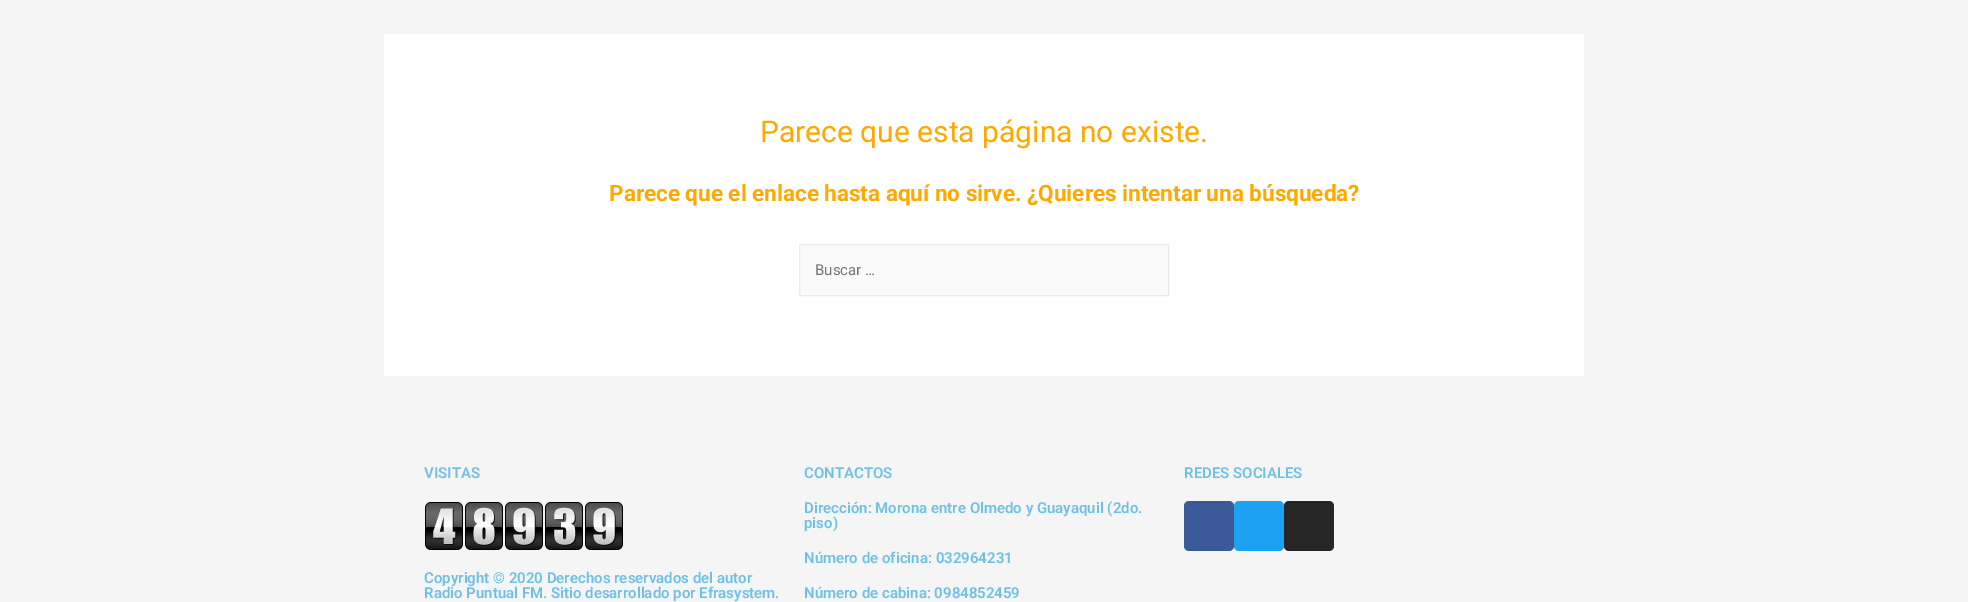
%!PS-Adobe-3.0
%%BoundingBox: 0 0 1968 602
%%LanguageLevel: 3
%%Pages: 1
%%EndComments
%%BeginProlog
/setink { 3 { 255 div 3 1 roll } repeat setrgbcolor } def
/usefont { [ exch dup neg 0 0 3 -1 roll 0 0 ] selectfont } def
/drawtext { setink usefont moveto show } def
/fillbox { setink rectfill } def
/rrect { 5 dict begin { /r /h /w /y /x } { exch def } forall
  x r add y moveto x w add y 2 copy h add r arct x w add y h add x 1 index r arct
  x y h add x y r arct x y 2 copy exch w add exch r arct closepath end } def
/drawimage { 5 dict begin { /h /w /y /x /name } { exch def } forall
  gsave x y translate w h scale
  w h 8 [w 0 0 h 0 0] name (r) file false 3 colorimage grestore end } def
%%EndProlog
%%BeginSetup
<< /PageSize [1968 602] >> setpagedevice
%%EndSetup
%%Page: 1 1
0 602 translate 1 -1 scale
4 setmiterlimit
0 0 1968 602 245 245 245 fillbox
384 34 1200 342 255 255 255 fillbox
(Parece que esta página no existe.) 760 142 /Roboto-Regular 30 255 168 0 drawtext
(Parece que el enlace hasta aquí no sirve. ¿Quieres intentar una búsqueda?) 609 201 /Roboto-Bold 22.5 255 168 0 drawtext
250 250 250 setink
799.5 244.5 369 51 1.5 rrect gsave fill grestore
234 234 234 setink
stroke
(Buscar …) 815 275 /Roboto-Regular 15 117 117 117 drawtext
(VISITAS) 424 478 /Roboto-SemiBold 15 110 193 228 drawtext
(assets/img1.rgb) 425 502 198 48 drawimage
(Copyright © 2020 Derechos reservados del autor) 424 583 /Roboto-SemiBold 15 110 193 228 drawtext
(Radio Puntual FM. Sitio desarrollado por Efrasystem.) 424 598 /Roboto-SemiBold 15 110 193 228 drawtext
(CONTACTOS) 804 478 /Roboto-SemiBold 15 110 193 228 drawtext
(Dirección: Morona entre Olmedo y Guayaquil \(2do.) 804 513 /Roboto-SemiBold 15 110 193 228 drawtext
(piso\)) 804 528 /Roboto-SemiBold 15 110 193 228 drawtext
(Número de oficina: 032964231) 804 563 /Roboto-SemiBold 15 110 193 228 drawtext
(Número de cabina: 0984852459) 804 598 /Roboto-SemiBold 15 110 193 228 drawtext
(REDES SOCIALES) 1184 478 /Roboto-SemiBold 15 110 193 228 drawtext
59 89 152 setink
1184 501 50 50 5 rrect fill
29 161 242 setink
1234 501 50 50 5 rrect fill
38 38 38 setink
1284 501 50 50 5 rrect fill
showpage
%%EOF
